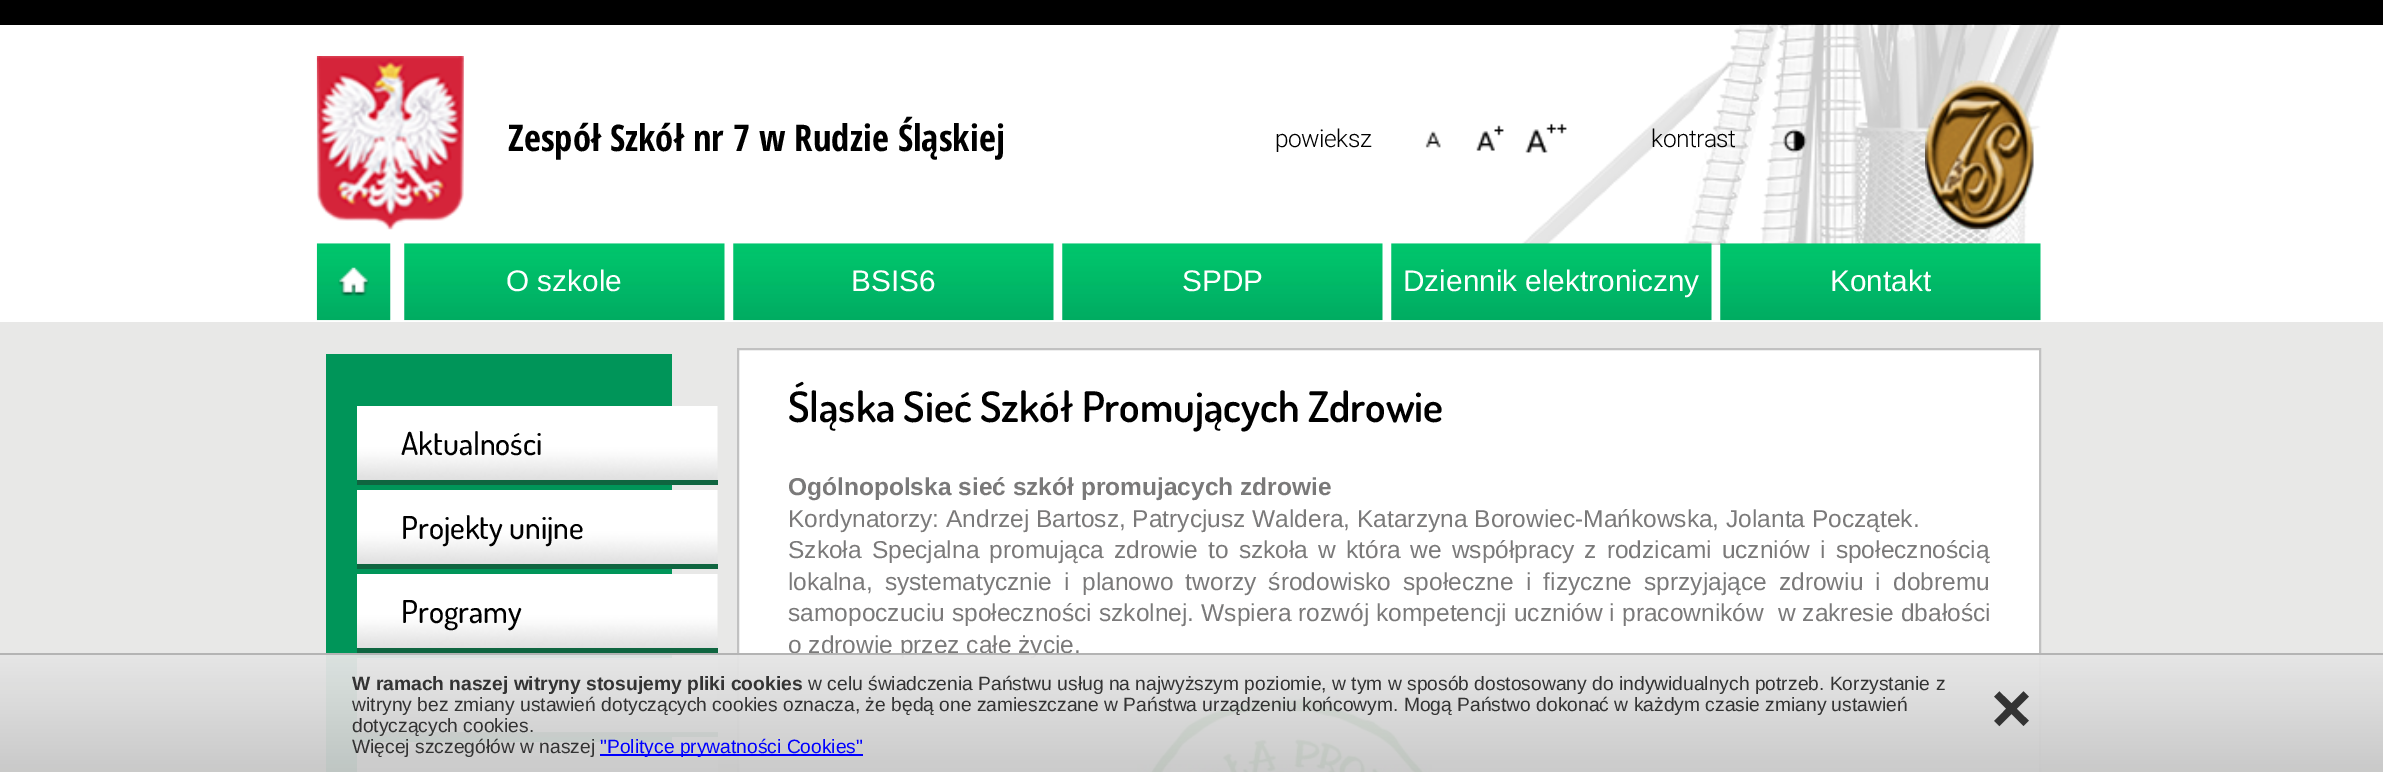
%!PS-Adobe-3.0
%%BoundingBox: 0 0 2383 772
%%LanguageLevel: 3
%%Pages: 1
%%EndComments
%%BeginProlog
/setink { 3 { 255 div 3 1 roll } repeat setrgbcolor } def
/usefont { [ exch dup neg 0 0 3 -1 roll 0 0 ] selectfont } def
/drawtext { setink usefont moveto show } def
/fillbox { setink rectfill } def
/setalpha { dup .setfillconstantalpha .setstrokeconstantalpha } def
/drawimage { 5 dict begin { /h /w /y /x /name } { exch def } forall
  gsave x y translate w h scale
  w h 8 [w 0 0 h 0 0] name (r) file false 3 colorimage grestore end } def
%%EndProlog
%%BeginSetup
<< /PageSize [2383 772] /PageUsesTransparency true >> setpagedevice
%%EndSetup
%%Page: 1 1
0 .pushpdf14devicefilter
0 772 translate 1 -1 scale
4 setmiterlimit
0 0 2383 772 0 0 0 fillbox
0 25 2383 297 255 255 255 fillbox
(assets/img1.rgb) 1521 24 540 221 drawimage
(assets/img2.rgb) 316 56 148 174 drawimage
(Zespół Szkół nr 7 w Rudzie Śląskiej) 508 151 /OpenSansCondensed-Bold 36.75 0 0 0 drawtext
/Roboto-Light 24.5 usefont
1275 147 moveto -0.5 0 (powieksz) ashow
(assets/img3.rgb) 1425 131 16 17 drawimage
(assets/img4.rgb) 1476 125 28 26 drawimage
(assets/img5.rgb) 1525 123 42 30 drawimage
1651 147 moveto -0.5 0 (kontrast) ashow
(assets/img6.rgb) 1783 129 24 24 drawimage
(assets/img7.rgb) 1925 80 109 150 drawimage
(assets/img8.rgb) 316 243 75 78 drawimage
(assets/img9.rgb) 338 267 31 29 drawimage
(assets/img10.rgb) 404 243 321 78 drawimage
(O szkole) 506 291 /LiberationSans-Regular 29.75 255 255 255 drawtext
(assets/img11.rgb) 733 243 321 78 drawimage
(BSIS6) 851 291 /LiberationSans-Regular 29.75 255 255 255 drawtext
(assets/img12.rgb) 1062 243 321 78 drawimage
(SPDP) 1182 291 /LiberationSans-Regular 29.75 255 255 255 drawtext
(assets/img13.rgb) 1391 243 321 78 drawimage
(Dziennik elektroniczny) 1403 291 /LiberationSans-Regular 29.75 255 255 255 drawtext
(assets/img14.rgb) 1720 243 321 78 drawimage
(Kontakt) 1830 291 /LiberationSans-Regular 29.75 255 255 255 drawtext
0 322 2383 450 232 232 231 fillbox
326 354 346 418 0 149 89 fillbox
(assets/img15.rgb) 357 406 361 74 drawimage
357 480 361 5 15 101 64 fillbox
(Aktualności) 401 455 /Dosis-Medium 31.5 0 0 0 drawtext
(assets/img15.rgb) 357 490 361 74 drawimage
357 564 361 5 15 101 64 fillbox
(Projekty unijne) 401 539 /Dosis-Medium 31.5 0 0 0 drawtext
(assets/img16.rgb) 357 574 361 74 drawimage
357 648 361 5 15 101 64 fillbox
(Programy) 401 623 /Dosis-Medium 31.5 0 0 0 drawtext
(assets/img17.rgb) 357 658 361 74 drawimage
357 732 361 5 15 101 64 fillbox
357 742 361 30 255 255 255 fillbox
738 349 moveto 2040 349 lineto 2040 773 lineto 738 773 lineto closepath gsave fill grestore
193 193 193 setink
2 setlinewidth
stroke
(Śląska Sieć Szkół Promujących Zdrowie) 788 422 /Dosis-SemiBold 42 0 0 0 drawtext
(Ogólnopolska sieć szkół promujacych zdrowie) 788 495 /LiberationSans-Bold 24.5 122 121 121 drawtext
(Kordynatorzy: Andrzej Bartosz, Patrycjusz Waldera, Katarzyna Borowiec-Mańkowska, Jolanta Początek.) 788 527 /LiberationSans-Regular 24.5 122 121 121 drawtext
788 558 moveto 3.25 0 32 (Szkoła Specjalna promująca zdrowie to szkoła w która we współpracy z rodzicami uczniów i społecznością) widthshow
788 590 moveto 5.4 0 32 (lokalna, systematycznie i planowo tworzy środowisko społeczne i fizyczne sprzyjające zdrowiu i dobremu) widthshow
788 621 moveto 0.25 0 32 (samopoczuciu społeczności szkolnej. Wspiera rozwój kompetencji uczniów i pracowników  w zakresie dbałości) widthshow
(o zdrowie przez całe życie.) 788 653 /LiberationSans-Regular 24.5 122 121 121 drawtext
(assets/img18.rgb) 1137 691 295 81 drawimage
0.95 setalpha
gsave 0 655 moveto 2383 655 lineto 2383 772 lineto 0 772 lineto closepath clip newpath
<< /ShadingType 2 /ColorSpace /DeviceRGB /Coords [1192 654 1192 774] /Extend [true true] /Function << /FunctionType 2 /Domain [0 1] /C0 [0.902 0.902 0.902] /C1 [0.784 0.784 0.784] /N 1 >> >> shfill grestore
1 setalpha
0 653 2383 2 180 180 180 fillbox
(W ramach naszej witryny stosujemy pliki cookies) 352 690 /LiberationSans-Bold 19.25 51 51 51 drawtext
(w celu świadczenia Państwu usług na najwyższym poziomie, w tym w sposób dostosowany do indywidualnych potrzeb. Korzystanie z) 808 690 /LiberationSans-Regular 19.25 51 51 51 drawtext
(witryny bez zmiany ustawień dotyczących cookies oznacza, że będą one zamieszczane w Państwa urządzeniu końcowym. Mogą Państwo dokonać w każdym czasie zmiany ustawień) 352 711 /LiberationSans-Regular 19.25 51 51 51 drawtext
(dotyczących cookies.) 352 732 /LiberationSans-Regular 19.25 51 51 51 drawtext
(Więcej szczegółów w naszej) 352 753 /LiberationSans-Regular 19.25 51 51 51 drawtext
600 754 263 2 0 0 255 fillbox
("Polityce prywatności Cookies") 600 753 /LiberationSans-Regular 19.25 0 0 255 drawtext
(×) 1991 732 /LiberationSans-Bold 70 51 51 51 drawtext
.poppdf14devicefilter showpage
%%EOF
